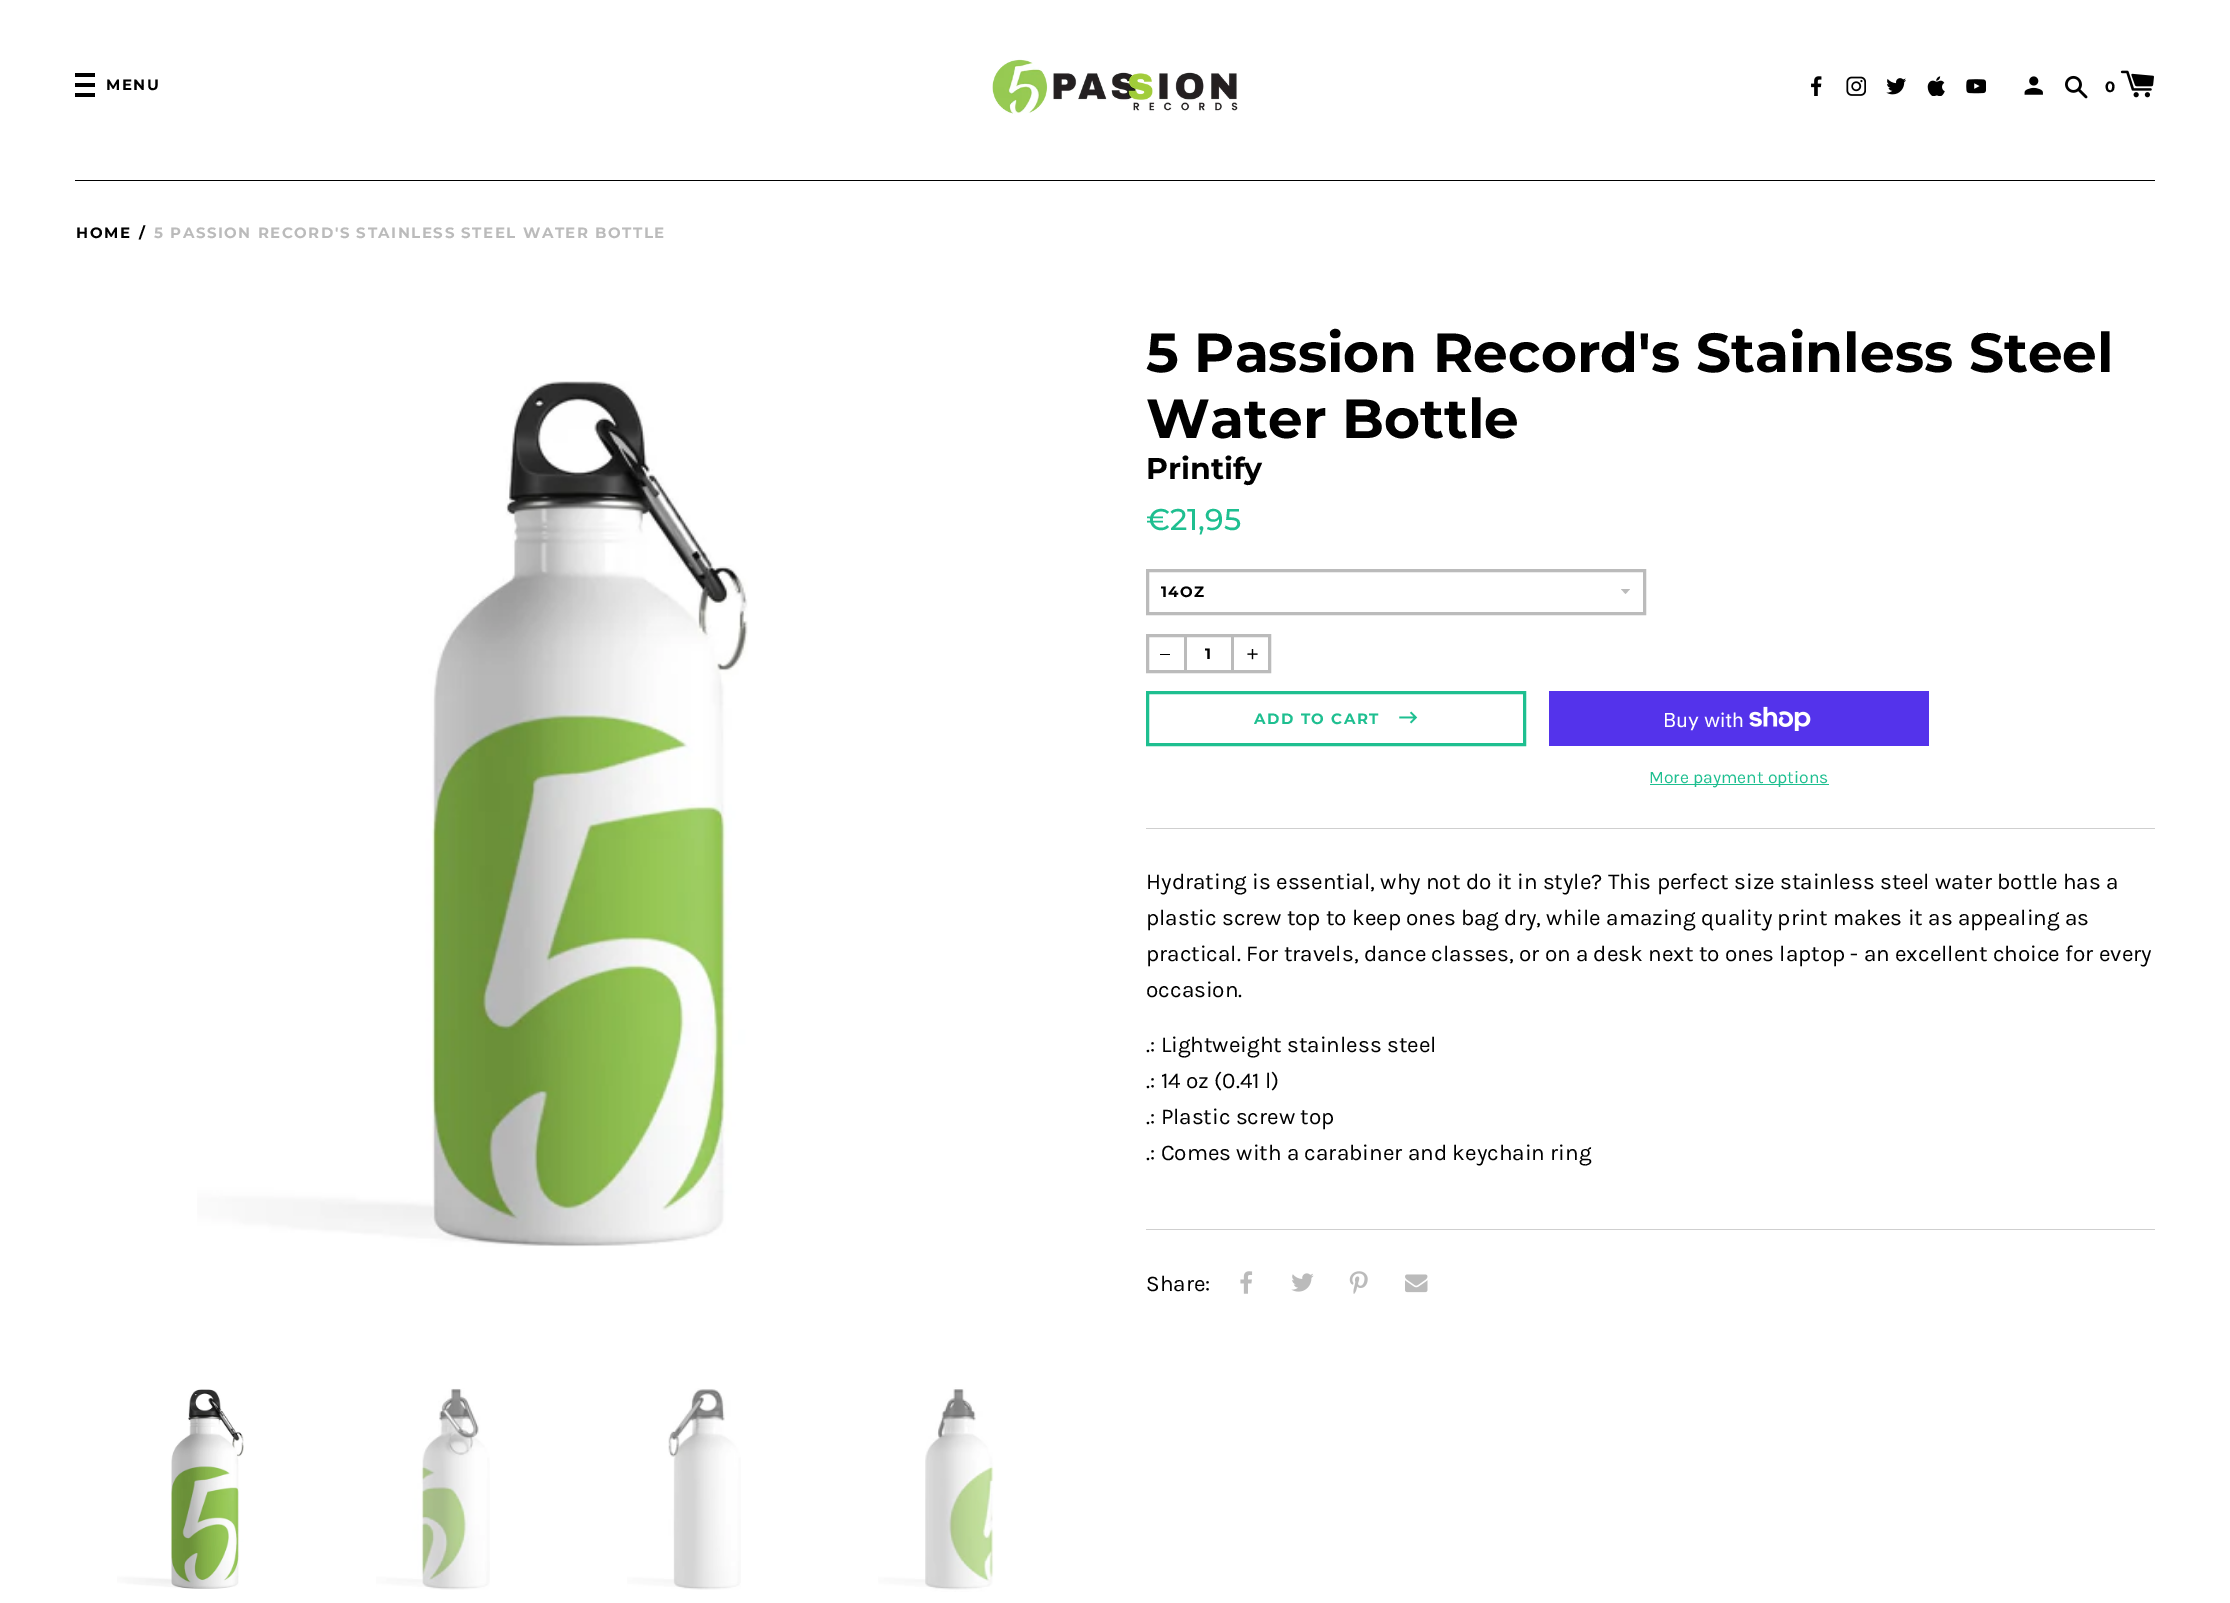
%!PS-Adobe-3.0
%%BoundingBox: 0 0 2230 1603
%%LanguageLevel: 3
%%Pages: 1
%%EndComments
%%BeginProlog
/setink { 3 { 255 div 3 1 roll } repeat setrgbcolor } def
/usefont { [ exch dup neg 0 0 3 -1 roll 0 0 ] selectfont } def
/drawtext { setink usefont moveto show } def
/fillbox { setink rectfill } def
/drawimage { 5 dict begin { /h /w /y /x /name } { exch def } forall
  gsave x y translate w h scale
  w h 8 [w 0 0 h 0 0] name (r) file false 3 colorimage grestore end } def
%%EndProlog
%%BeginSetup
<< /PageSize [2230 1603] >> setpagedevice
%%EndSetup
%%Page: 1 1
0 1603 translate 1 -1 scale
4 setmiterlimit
0 0 2230 1603 255 255 255 fillbox
75 180 2080 1 0 0 0 fillbox
75 73 20 4 0 0 0 fillbox
75 83 20 4 0 0 0 fillbox
75 93 20 4 0 0 0 fillbox
/Montserrat-Bold 15 usefont
106 90 moveto 1.5 0 (MENU) ashow
(assets/img1.rgb) 992 59 246 55 drawimage
(assets/img2.rgb) 1811 76 11 20 drawimage
(assets/img3.rgb) 1846 76 20 20 drawimage
(assets/img4.rgb) 1886 78 20 17 drawimage
(assets/img5.rgb) 1927 76 18 20 drawimage
(assets/img6.rgb) 1966 79 20 15 drawimage
(assets/img7.rgb) 2024 76 19 19 drawimage
(assets/img8.rgb) 2065 75 23 24 drawimage
(0) 2105 92 /Montserrat-Bold 15 0 0 0 drawtext
(assets/img9.rgb) 2120 70 34 28 drawimage
76 238 moveto 1.5 0 (HOME) ashow
139 238 moveto 1.5 0 (/) ashow
187 187 187 setink
154 238 moveto 1.5 0 (5 PASSION RECORD'S STAINLESS STEEL WATER BOTTLE) ashow
(assets/img10.rgb) 197 381 551 866 drawimage
(assets/img11.rgb) 117 1389 127 200 drawimage
(assets/img12.rgb) 376 1388 114 202 drawimage
(assets/img13.rgb) 627 1388 114 202 drawimage
(assets/img14.rgb) 878 1387 116 205 drawimage
(5 Passion Record's Stainless Steel) 1146 372 /Montserrat-Bold 55 0 0 0 drawtext
(Water Bottle) 1146 438 /Montserrat-Bold 55 0 0 0 drawtext
(Printify) 1146 479 /Montserrat-Bold 30 0 0 0 drawtext
(€21,95) 1146 530 /Montserrat-Medium 30 30 191 144 drawtext
187 187 187 setink
1621 589 moveto 1625.5 594 lineto 1630 589 lineto closepath fill
3 setlinewidth
1147.5 570.5 497 43 rectstroke
/Montserrat-Bold 15 usefont
0 0 0 setink
1161 597 moveto 1.5 0 (14OZ) ashow
187 187 187 setink
1147.5 635.5 122 36 rectstroke
1184 634 3 39 187 187 187 fillbox
1160 654 10 1 0 0 0 fillbox
1205 659 moveto 1.5 0 (1) ashow
1231 634 3 39 187 187 187 fillbox
(assets/img15.rgb) 1247 649 11 11 drawimage
30 191 144 setink
1147.5 692.5 377 52 rectstroke
1254 724 moveto 1.5 0 (ADD TO CART) ashow
(assets/img16.rgb) 1399 711 19 13 drawimage
1549 691 380 55 84 51 235 fillbox
(Buy with) 1663 727 /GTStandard-Regular 20 255 255 255 drawtext
(assets/img17.rgb) 1749 706 62 25 drawimage
1650 784 179 1 30 191 144 fillbox
(More payment options) 1649 783 /Karla-Regular 17.5 30 191 144 drawtext
1146 828 1009 1 207 207 207 fillbox
(Hydrating is essential, why not do it in style? This perfect size stainless steel water bottle has a) 1146 889 /Karla-Regular 22.5 0 0 0 drawtext
(plastic screw top to keep ones bag dry, while amazing quality print makes it as appealing as) 1146 925 /Karla-Regular 22.5 0 0 0 drawtext
(practical. For travels, dance classes, or on a desk next to ones laptop - an excellent choice for every) 1146 961 /Karla-Regular 22.5 0 0 0 drawtext
(occasion.) 1146 997 /Karla-Regular 22.5 0 0 0 drawtext
(.: Lightweight stainless steel) 1146 1052 /Karla-Regular 22.5 0 0 0 drawtext
(.: 14 oz \(0.41 l\)) 1146 1088 /Karla-Regular 22.5 0 0 0 drawtext
(.: Plastic screw top) 1146 1124 /Karla-Regular 22.5 0 0 0 drawtext
(.: Comes with a carabiner and keychain ring) 1146 1160 /Karla-Regular 22.5 0 0 0 drawtext
1146 1229 1009 1 207 207 207 fillbox
(Share:) 1146 1291 /Karla-Regular 22.5 0 0 0 drawtext
(assets/img18.rgb) 1240 1271 13 23 drawimage
(assets/img19.rgb) 1291 1273 23 19 drawimage
(assets/img20.rgb) 1349 1271 19 23 drawimage
(assets/img21.rgb) 1405 1274 23 19 drawimage
showpage
%%EOF
